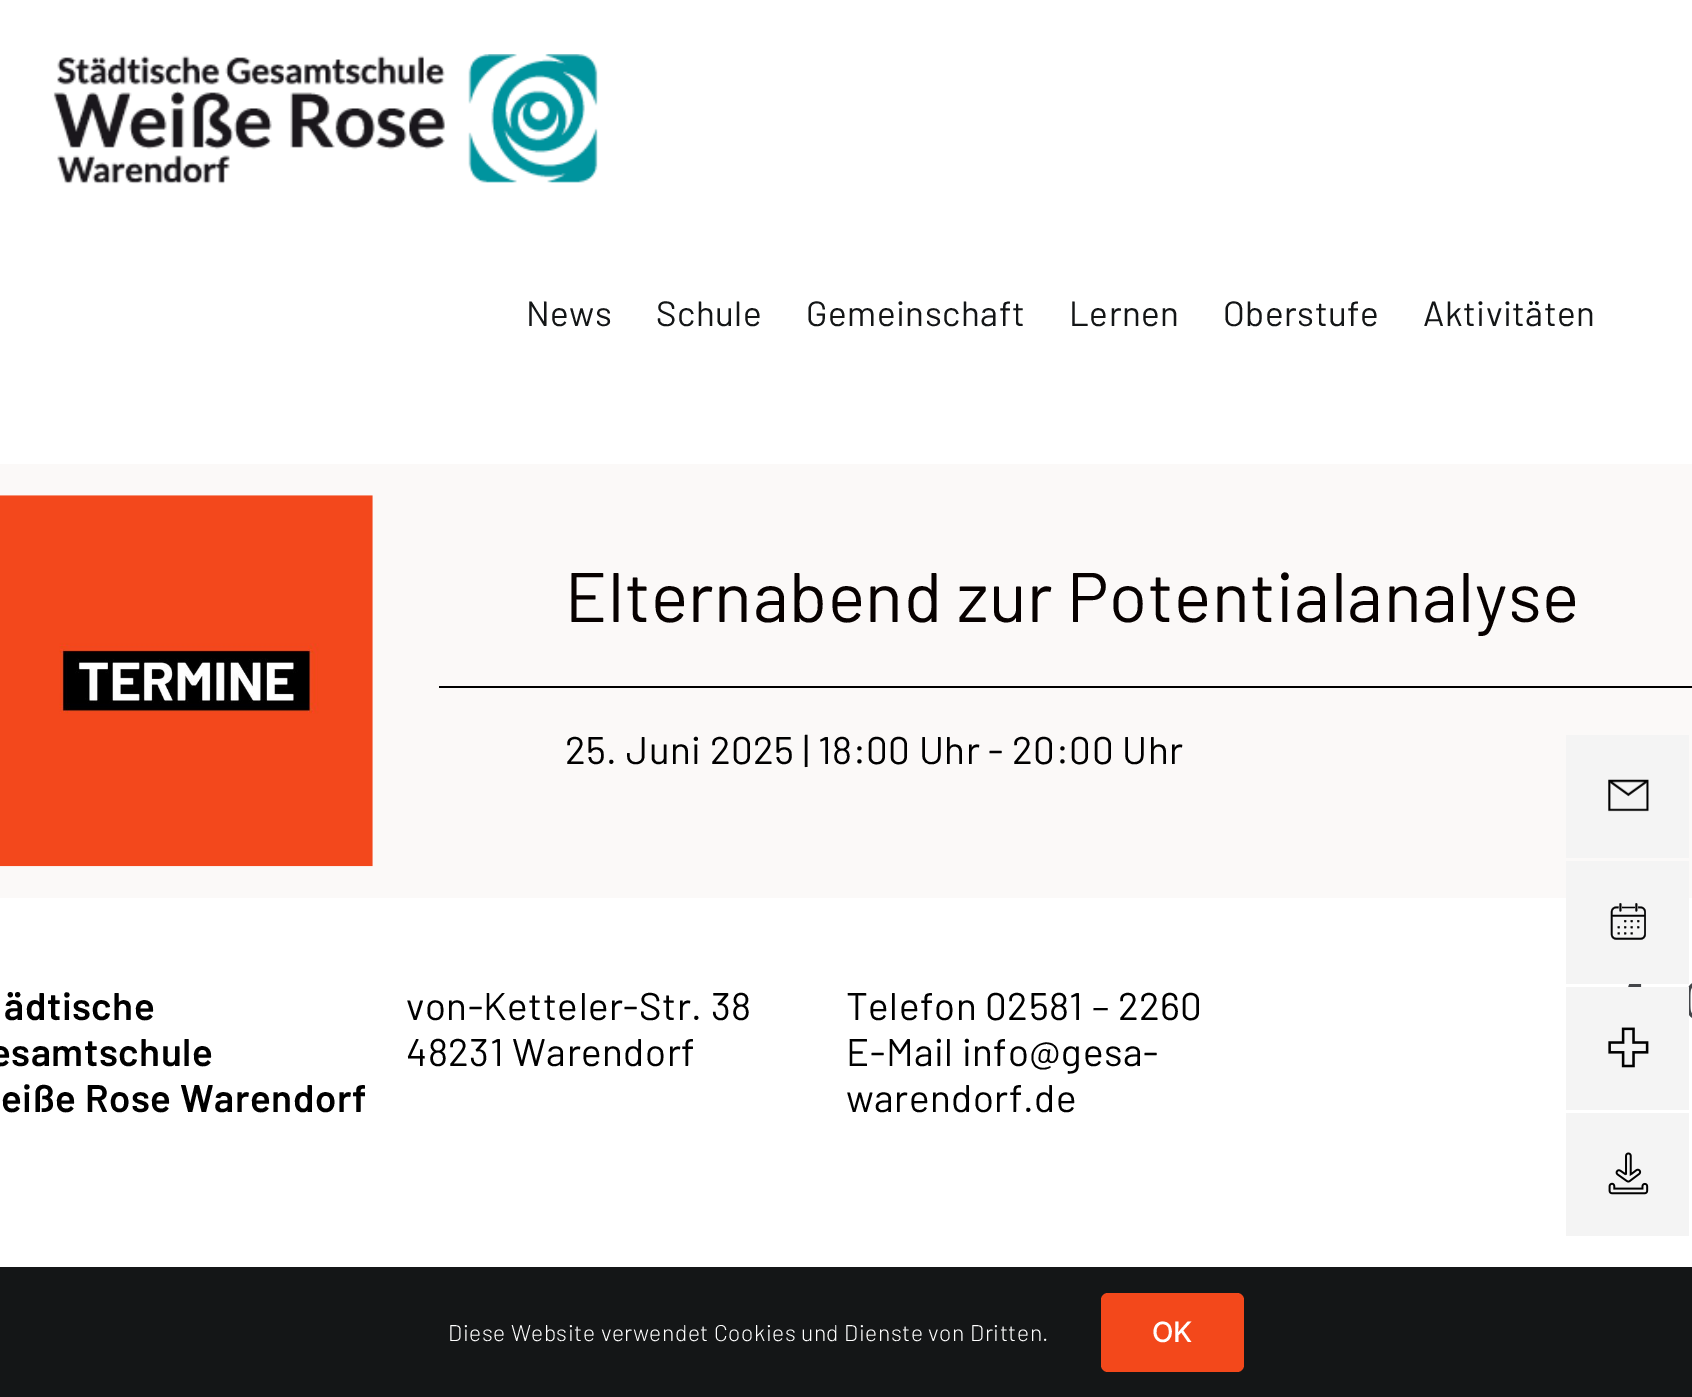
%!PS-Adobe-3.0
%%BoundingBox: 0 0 1692 1397
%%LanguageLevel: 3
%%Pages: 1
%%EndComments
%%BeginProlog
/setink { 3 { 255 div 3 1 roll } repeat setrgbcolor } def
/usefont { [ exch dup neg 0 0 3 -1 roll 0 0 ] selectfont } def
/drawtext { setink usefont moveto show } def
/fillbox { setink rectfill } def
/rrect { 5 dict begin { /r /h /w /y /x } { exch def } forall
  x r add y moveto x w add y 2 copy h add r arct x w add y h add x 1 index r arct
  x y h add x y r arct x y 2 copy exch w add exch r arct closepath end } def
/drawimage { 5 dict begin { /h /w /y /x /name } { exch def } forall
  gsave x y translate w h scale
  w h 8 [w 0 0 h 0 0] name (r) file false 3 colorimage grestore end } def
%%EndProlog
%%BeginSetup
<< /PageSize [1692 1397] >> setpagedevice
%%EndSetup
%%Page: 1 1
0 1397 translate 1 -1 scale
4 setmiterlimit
0 0 1692 1397 255 255 255 fillbox
(assets/img1.rgb) 53 54 545 130 drawimage
/Barlow-Regular 35 usefont
20 22 23 setink
526 326 moveto 0.53 0 (News) ashow
656 326 moveto 0.53 0 (Schule) ashow
806 326 moveto 0.53 0 (Gemeinschaft) ashow
1069 326 moveto 0.53 0 (Lernen) ashow
1223 326 moveto 0.53 0 (Oberstufe) ashow
1423 326 moveto 0.53 0 (Aktivitäten) ashow
0 464 1692 434 251 249 248 fillbox
(assets/img2.rgb) 0 495 373 372 drawimage
/Barlow-Regular 70 usefont
7 1 0 setink
565 622 moveto 0.53 0 (Elternabend zur Potentialanalyse) ashow
439 686 1253 2 0 0 0 fillbox
/Barlow-Regular 38.5 usefont
565 764 moveto 0.53 0 (25. Juni 2025 | 18:00 Uhr - 20:00 Uhr) ashow
/Barlow-SemiBold 38.5 usefont
4 1020 moveto 0.53 0 (ädtische) ashow
-10 1066 moveto 0.53 0 (esamtschule) ashow
1 1112 moveto 0.53 0 (eiße Rose Warendorf) ashow
/Barlow-Regular 38.5 usefont
406 1020 moveto 0.53 0 (von-Ketteler-Str. 38) ashow
406 1066 moveto 0.53 0 (48231 Warendorf) ashow
846 1020 moveto 0.53 0 (Telefon 02581 – 2260) ashow
846 1066 moveto 0.53 0 (E-Mail info@gesa-) ashow
846 1112 moveto 0.53 0 (warendorf.de) ashow
(assets/img3.rgb) 1628 984 14 3 drawimage
(assets/img4.rgb) 1688 983 4 35 drawimage
1566 735 123 123 244 244 244 fillbox
(assets/img5.rgb) 1608 779 41 33 drawimage
1566 861 123 123 244 244 244 fillbox
(assets/img6.rgb) 1610 903 36 37 drawimage
1566 987 123 123 244 244 244 fillbox
(assets/img7.rgb) 1608 1027 41 41 drawimage
1566 1113 123 123 244 244 244 fillbox
(assets/img8.rgb) 1608 1152 41 43 drawimage
0 1267 1692 130 20 22 23 fillbox
/Barlow-Light 22.75 usefont
255 255 255 setink
448 1341 moveto 0.53 0 (Diese Website verwendet Cookies und Dienste von Dritten.) ashow
243 72 27 setink
1101 1293 143 79 7 rrect fill
(OK) 1152 1342 /Inter-Medium 28 255 255 255 drawtext
showpage
%%EOF
